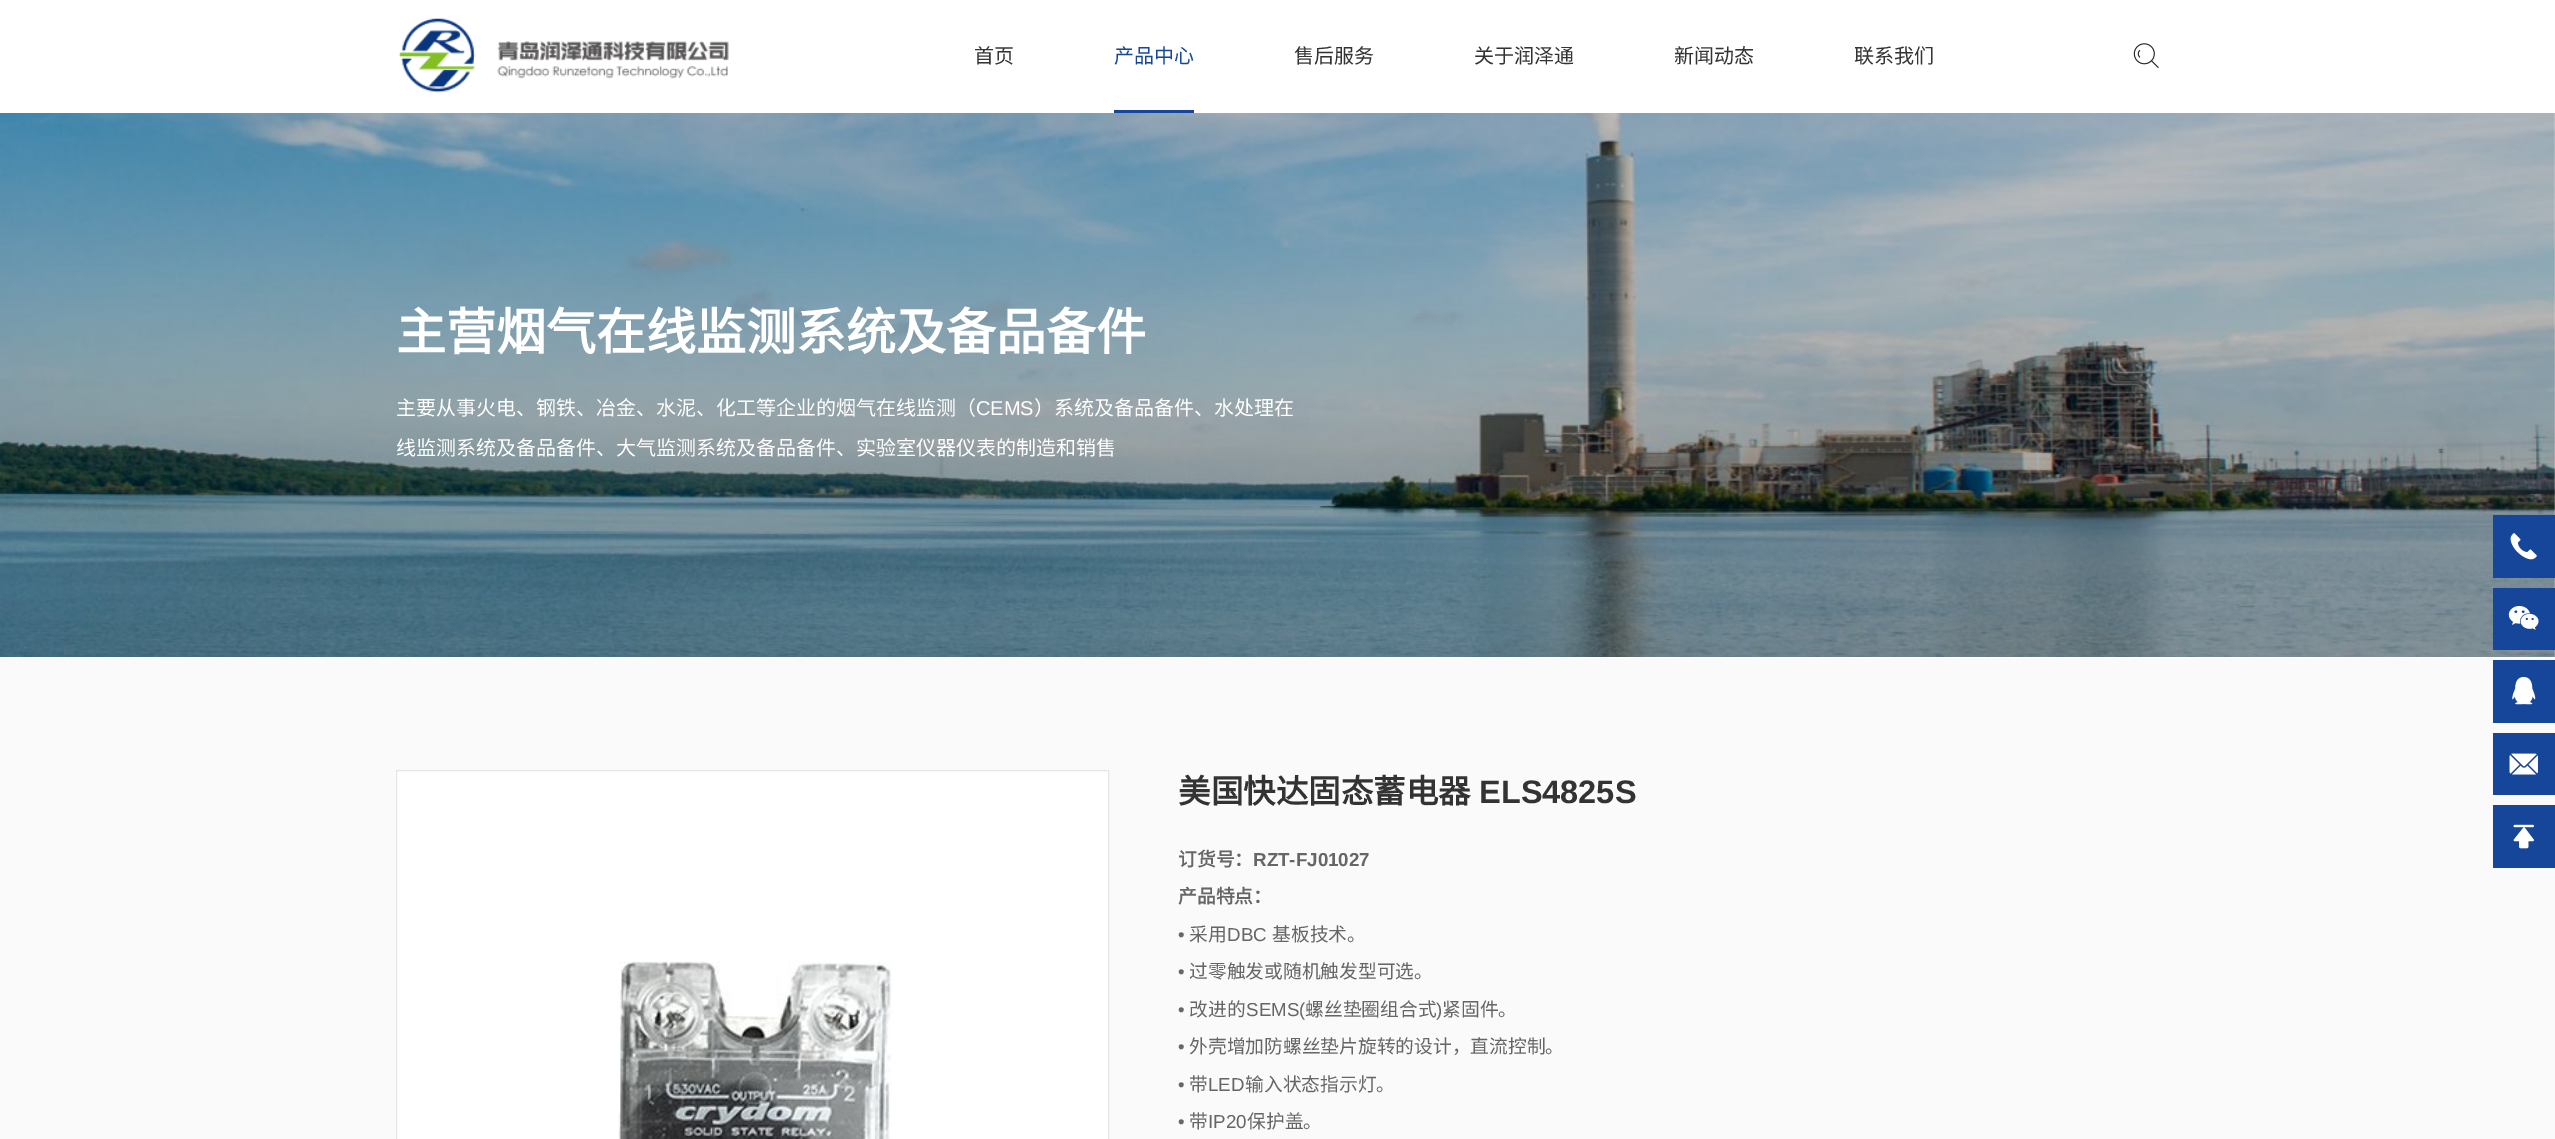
%!PS-Adobe-3.0
%%BoundingBox: 0 0 2555 1139
%%LanguageLevel: 3
%%Pages: 1
%%EndComments
%%BeginProlog
/setink { 3 { 255 div 3 1 roll } repeat setrgbcolor } def
/usefont { [ exch dup neg 0 0 3 -1 roll 0 0 ] selectfont } def
/drawtext { setink usefont moveto show } def
/fillbox { setink rectfill } def
/drawimage { 5 dict begin { /h /w /y /x /name } { exch def } forall
  gsave x y translate w h scale
  w h 8 [w 0 0 h 0 0] name (r) file false 3 colorimage grestore end } def
%%EndProlog
%%BeginSetup
<< /PageSize [2555 1139] >> setpagedevice
%%EndSetup
%%Page: 1 1
0 1139 translate 1 -1 scale
4 setmiterlimit
0 0 2555 1139 255 255 255 fillbox
(assets/img1.rgb) 398 18 331 75 drawimage
(首页) 974 63 /NotoSansCJKSC-Regular 20 51 51 51 drawtext
(产品中心) 1114 63 /NotoSansCJKSC-Regular 20 21 70 153 drawtext
1114 110 80 3 21 70 153 fillbox
(售后服务) 1294 63 /NotoSansCJKSC-Regular 20 51 51 51 drawtext
(关于润泽通) 1474 63 /NotoSansCJKSC-Regular 20 51 51 51 drawtext
(新闻动态) 1674 63 /NotoSansCJKSC-Regular 20 51 51 51 drawtext
(联系我们) 1854 63 /NotoSansCJKSC-Regular 20 51 51 51 drawtext
(assets/img2.rgb) 2133 43 26 25 drawimage
(assets/img3.rgb) 0 113 2555 544 drawimage
(主营烟气在线监测系统及备品备件) 396 350 /NotoSansCJKSC-Bold 50 255 255 255 drawtext
(主要从事火电、钢铁、冶金、水泥、化工等企业的烟气在线监测（) 396 415 /NotoSansCJKSC-Regular 20 255 255 255 drawtext
(CEMS) 976 415 /LiberationSans-Regular 20 255 255 255 drawtext
(）系统及备品备件、水处理在) 1034 415 /NotoSansCJKSC-Regular 20 255 255 255 drawtext
(线监测系统及备品备件、大气监测系统及备品备件、实验室仪器仪表的制造和销售) 396 455 /NotoSansCJKSC-Regular 20 255 255 255 drawtext
2493 515 62 63 21 70 153 fillbox
(assets/img4.rgb) 2510 533 27 27 drawimage
2493 588 62 62 21 70 153 fillbox
(assets/img5.rgb) 2508 606 31 24 drawimage
0 658 2555 481 250 250 250 fillbox
2493 660 62 63 21 70 153 fillbox
(assets/img6.rgb) 2512 676 24 29 drawimage
2493 733 62 62 21 70 153 fillbox
(assets/img7.rgb) 2509 753 29 22 drawimage
2493 805 62 63 21 70 153 fillbox
(assets/img8.rgb) 2513 824 21 25 drawimage
255 255 255 setink
396.5 770.5 moveto 1108.5 770.5 lineto 1108.5 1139.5 lineto 396.5 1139.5 lineto closepath gsave fill grestore
230 230 230 setink
stroke
(assets/img9.rgb) 618 961 275 178 drawimage
(美国快达固态蓄电器) 1178 803 /NotoSansCJKSC-Bold 32.5 51 51 51 drawtext
(ELS4825S) 1479 803 /LiberationSans-Bold 32.5 51 51 51 drawtext
(订货号：) 1178 866 /NotoSansCJKSC-Bold 18.75 102 102 102 drawtext
(RZT-FJ01027) 1253 866 /LiberationSans-Bold 18.75 102 102 102 drawtext
(产品特点：) 1178 903 /NotoSansCJKSC-Bold 18.75 102 102 102 drawtext
(•) 1178 941 /LiberationSans-Regular 18.75 102 102 102 drawtext
(采用) 1189 941 /NotoSansCJKSC-Regular 18.75 102 102 102 drawtext
(DBC) 1227 941 /LiberationSans-Regular 18.75 102 102 102 drawtext
(基板技术。) 1272 941 /NotoSansCJKSC-Regular 18.75 102 102 102 drawtext
(•) 1178 978 /LiberationSans-Regular 18.75 102 102 102 drawtext
(过零触发或随机触发型可选。) 1189 978 /NotoSansCJKSC-Regular 18.75 102 102 102 drawtext
(•) 1178 1016 /LiberationSans-Regular 18.75 102 102 102 drawtext
(改进的) 1189 1016 /NotoSansCJKSC-Regular 18.75 102 102 102 drawtext
(SEMS\() 1246 1016 /LiberationSans-Regular 18.75 102 102 102 drawtext
(螺丝垫圈组合式) 1305 1016 /NotoSansCJKSC-Regular 18.75 102 102 102 drawtext
(\)) 1436 1016 /LiberationSans-Regular 18.75 102 102 102 drawtext
(紧固件。) 1442 1016 /NotoSansCJKSC-Regular 18.75 102 102 102 drawtext
(•) 1178 1053 /LiberationSans-Regular 18.75 102 102 102 drawtext
(外壳增加防螺丝垫片旋转的设计，直流控制。) 1189 1053 /NotoSansCJKSC-Regular 18.75 102 102 102 drawtext
(•) 1178 1091 /LiberationSans-Regular 18.75 102 102 102 drawtext
(带) 1189 1091 /NotoSansCJKSC-Regular 18.75 102 102 102 drawtext
(LED) 1208 1091 /LiberationSans-Regular 18.75 102 102 102 drawtext
(输入状态指示灯。) 1245 1091 /NotoSansCJKSC-Regular 18.75 102 102 102 drawtext
(•) 1178 1128 /LiberationSans-Regular 18.75 102 102 102 drawtext
(带) 1189 1128 /NotoSansCJKSC-Regular 18.75 102 102 102 drawtext
(IP20) 1208 1128 /LiberationSans-Regular 18.75 102 102 102 drawtext
(保护盖。) 1247 1128 /NotoSansCJKSC-Regular 18.75 102 102 102 drawtext
showpage
%%EOF
